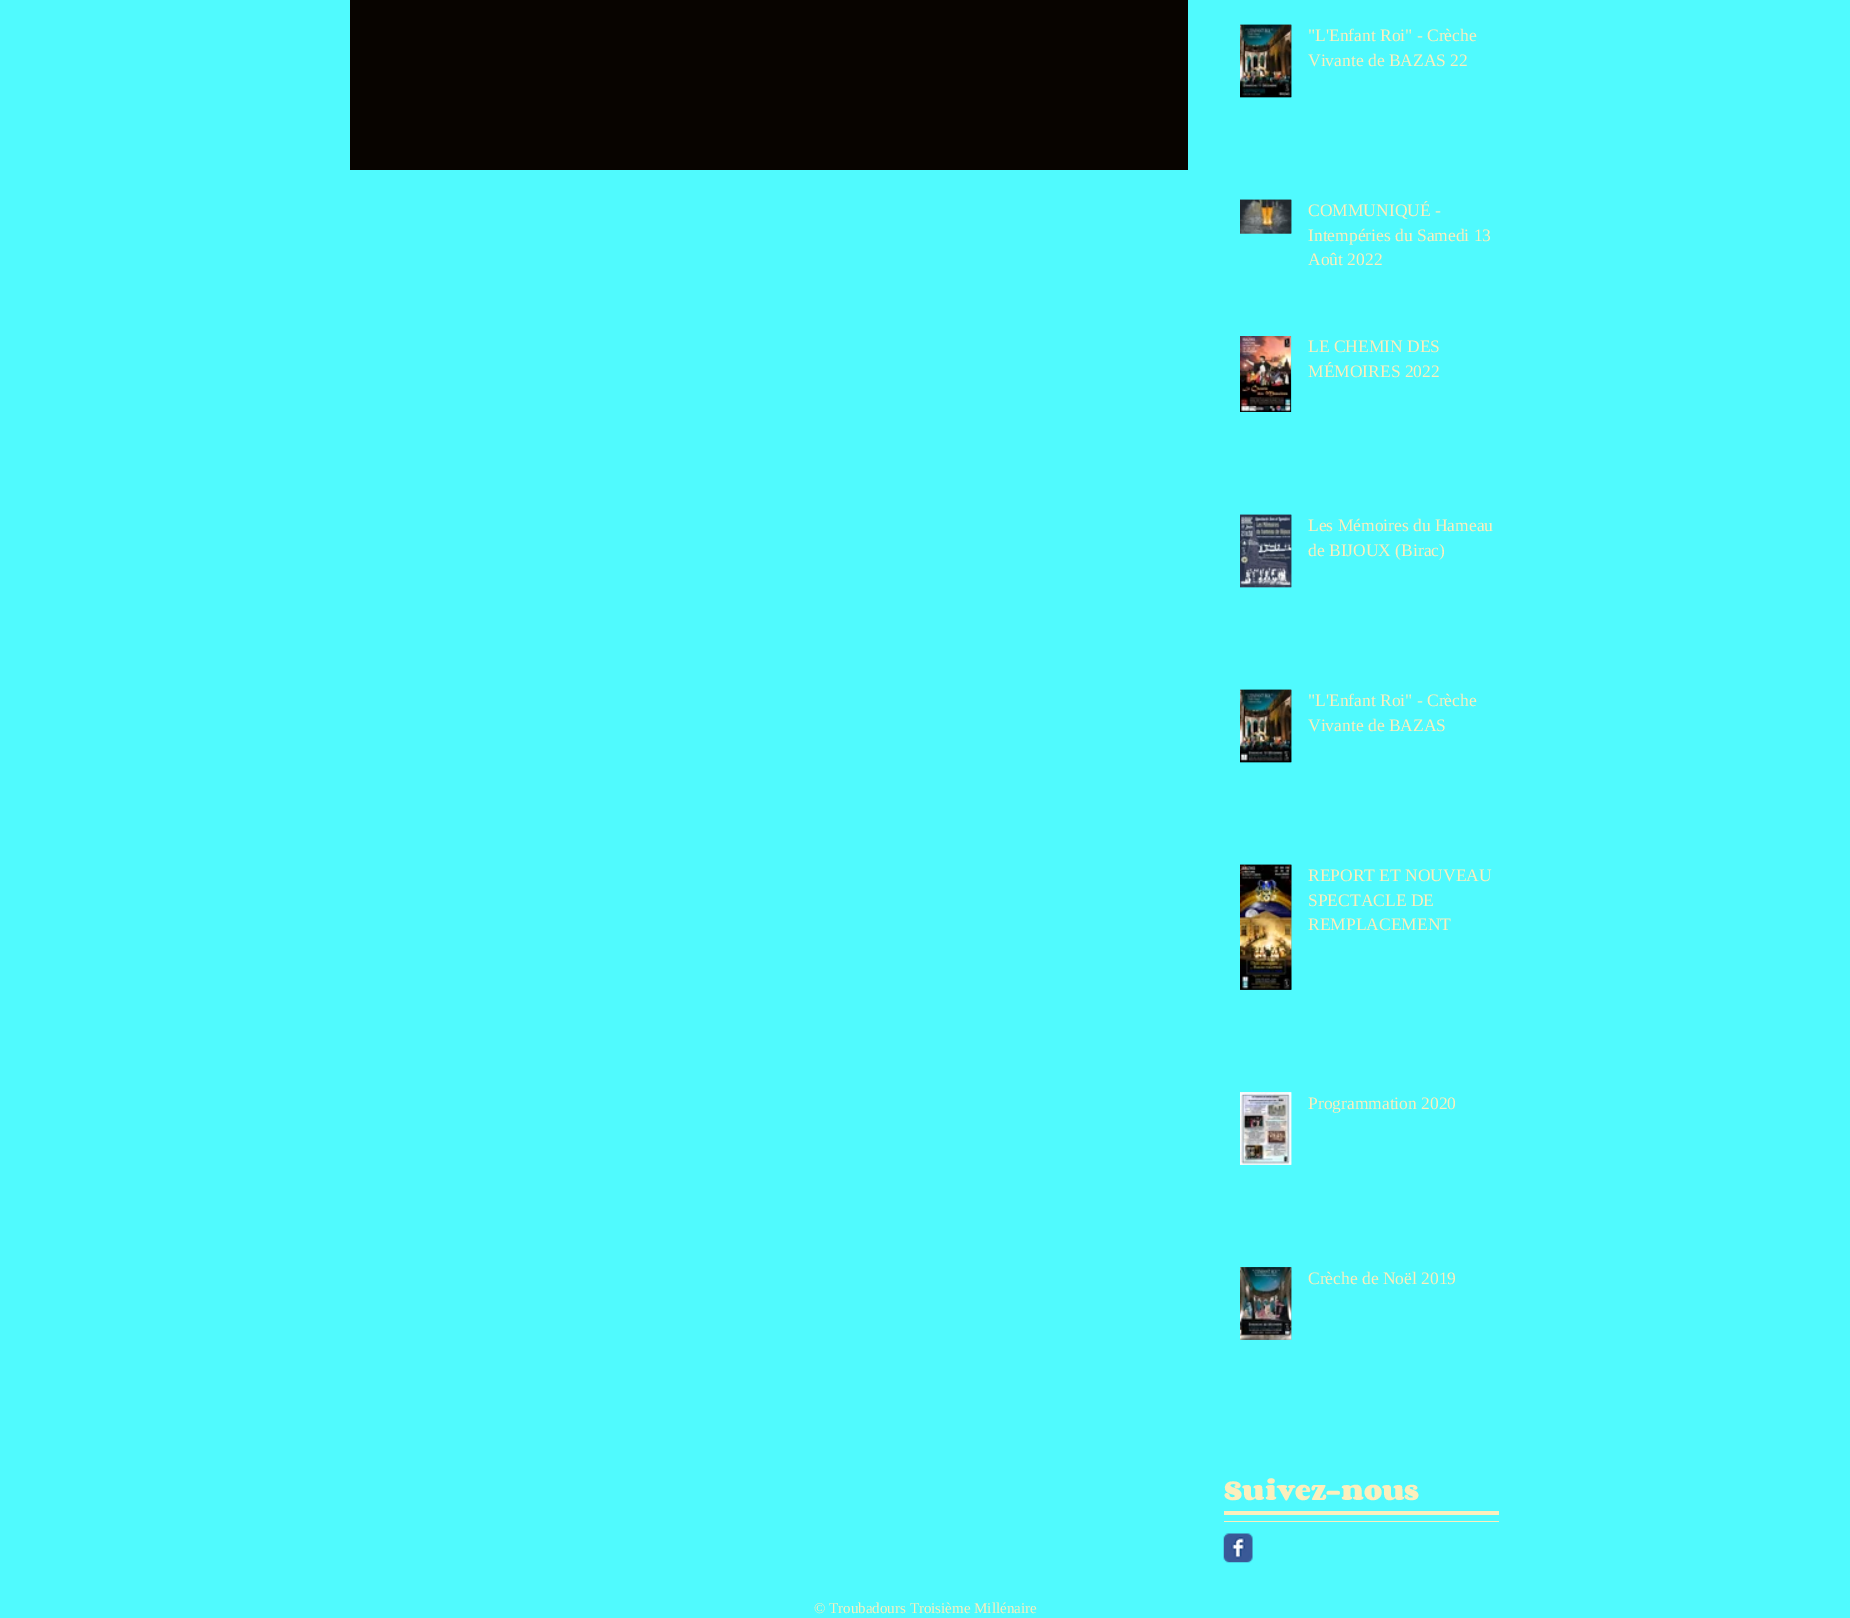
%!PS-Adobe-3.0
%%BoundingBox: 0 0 1850 1618
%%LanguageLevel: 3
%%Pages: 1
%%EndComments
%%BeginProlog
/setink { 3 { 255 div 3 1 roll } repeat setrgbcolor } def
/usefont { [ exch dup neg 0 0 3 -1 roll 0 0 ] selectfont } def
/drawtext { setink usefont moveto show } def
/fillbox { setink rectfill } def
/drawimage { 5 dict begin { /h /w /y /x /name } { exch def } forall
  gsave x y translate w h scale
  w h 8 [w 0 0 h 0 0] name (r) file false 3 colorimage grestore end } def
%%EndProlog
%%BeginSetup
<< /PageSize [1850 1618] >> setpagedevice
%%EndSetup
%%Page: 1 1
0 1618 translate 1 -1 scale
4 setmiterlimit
0 0 1850 1618 80 250 254 fillbox
350 0 838 170 8 4 0 fillbox
(assets/img1.rgb) 1240 24 52 74 drawimage
(assets/img2.rgb) 1240 24 52 74 drawimage
("L'Enfant Roi" - Crèche) 1308 41 /LiberationSerif-Regular 17.5 252 239 189 drawtext
(Vivante de BAZAS 22) 1308 66 /LiberationSerif-Regular 17.5 252 239 189 drawtext
(assets/img3.rgb) 1240 199 52 35 drawimage
(assets/img4.rgb) 1240 199 52 35 drawimage
(COMMUNIQUÉ -) 1308 216 /LiberationSerif-Regular 17.5 252 239 189 drawtext
(Intempéries du Samedi 13) 1308 241 /LiberationSerif-Regular 17.5 252 239 189 drawtext
(Août 2022) 1308 265 /LiberationSerif-Regular 17.5 252 239 189 drawtext
(assets/img5.rgb) 1240 336 51 76 drawimage
(assets/img6.rgb) 1291 336 1 76 drawimage
(LE CHEMIN DES) 1308 352 /LiberationSerif-Regular 17.5 252 239 189 drawtext
(MÉMOIRES 2022) 1308 377 /LiberationSerif-Regular 17.5 252 239 189 drawtext
(assets/img7.rgb) 1240 514 52 74 drawimage
(assets/img8.rgb) 1240 514 52 74 drawimage
(Les Mémoires du Hameau) 1308 531 /LiberationSerif-Regular 17.5 252 239 189 drawtext
(de BIJOUX \(Birac\)) 1308 556 /LiberationSerif-Regular 17.5 252 239 189 drawtext
(assets/img9.rgb) 1240 689 52 74 drawimage
(assets/img10.rgb) 1240 689 52 74 drawimage
("L'Enfant Roi" - Crèche) 1308 706 /LiberationSerif-Regular 17.5 252 239 189 drawtext
(Vivante de BAZAS) 1308 731 /LiberationSerif-Regular 17.5 252 239 189 drawtext
(assets/img11.rgb) 1240 864 52 126 drawimage
(assets/img12.rgb) 1240 864 52 126 drawimage
(REPORT ET NOUVEAU) 1308 881 /LiberationSerif-Regular 17.5 252 239 189 drawtext
(SPECTACLE DE) 1308 906 /LiberationSerif-Regular 17.5 252 239 189 drawtext
(REMPLACEMENT) 1308 930 /LiberationSerif-Regular 17.5 252 239 189 drawtext
(assets/img13.rgb) 1240 1092 52 73 drawimage
(assets/img14.rgb) 1240 1092 52 73 drawimage
(Programmation 2020) 1308 1109 /LiberationSerif-Regular 17.5 252 239 189 drawtext
(assets/img15.rgb) 1240 1267 52 73 drawimage
(assets/img16.rgb) 1240 1267 52 73 drawimage
(Crèche de Noël 2019) 1308 1284 /LiberationSerif-Regular 17.5 252 239 189 drawtext
(Suivez-nous) 1224 1500 /Corben-Bold 23.75 252 239 189 drawtext
1224 1511 275 4 252 239 189 fillbox
1224 1521 275 1 252 239 189 fillbox
(assets/img17.rgb) 1223 1533 30 30 drawimage
(© Troubadours Troisième Millénaire) 814 1613 /LiberationSerif-Regular 15 252 239 189 drawtext
showpage
%%EOF
